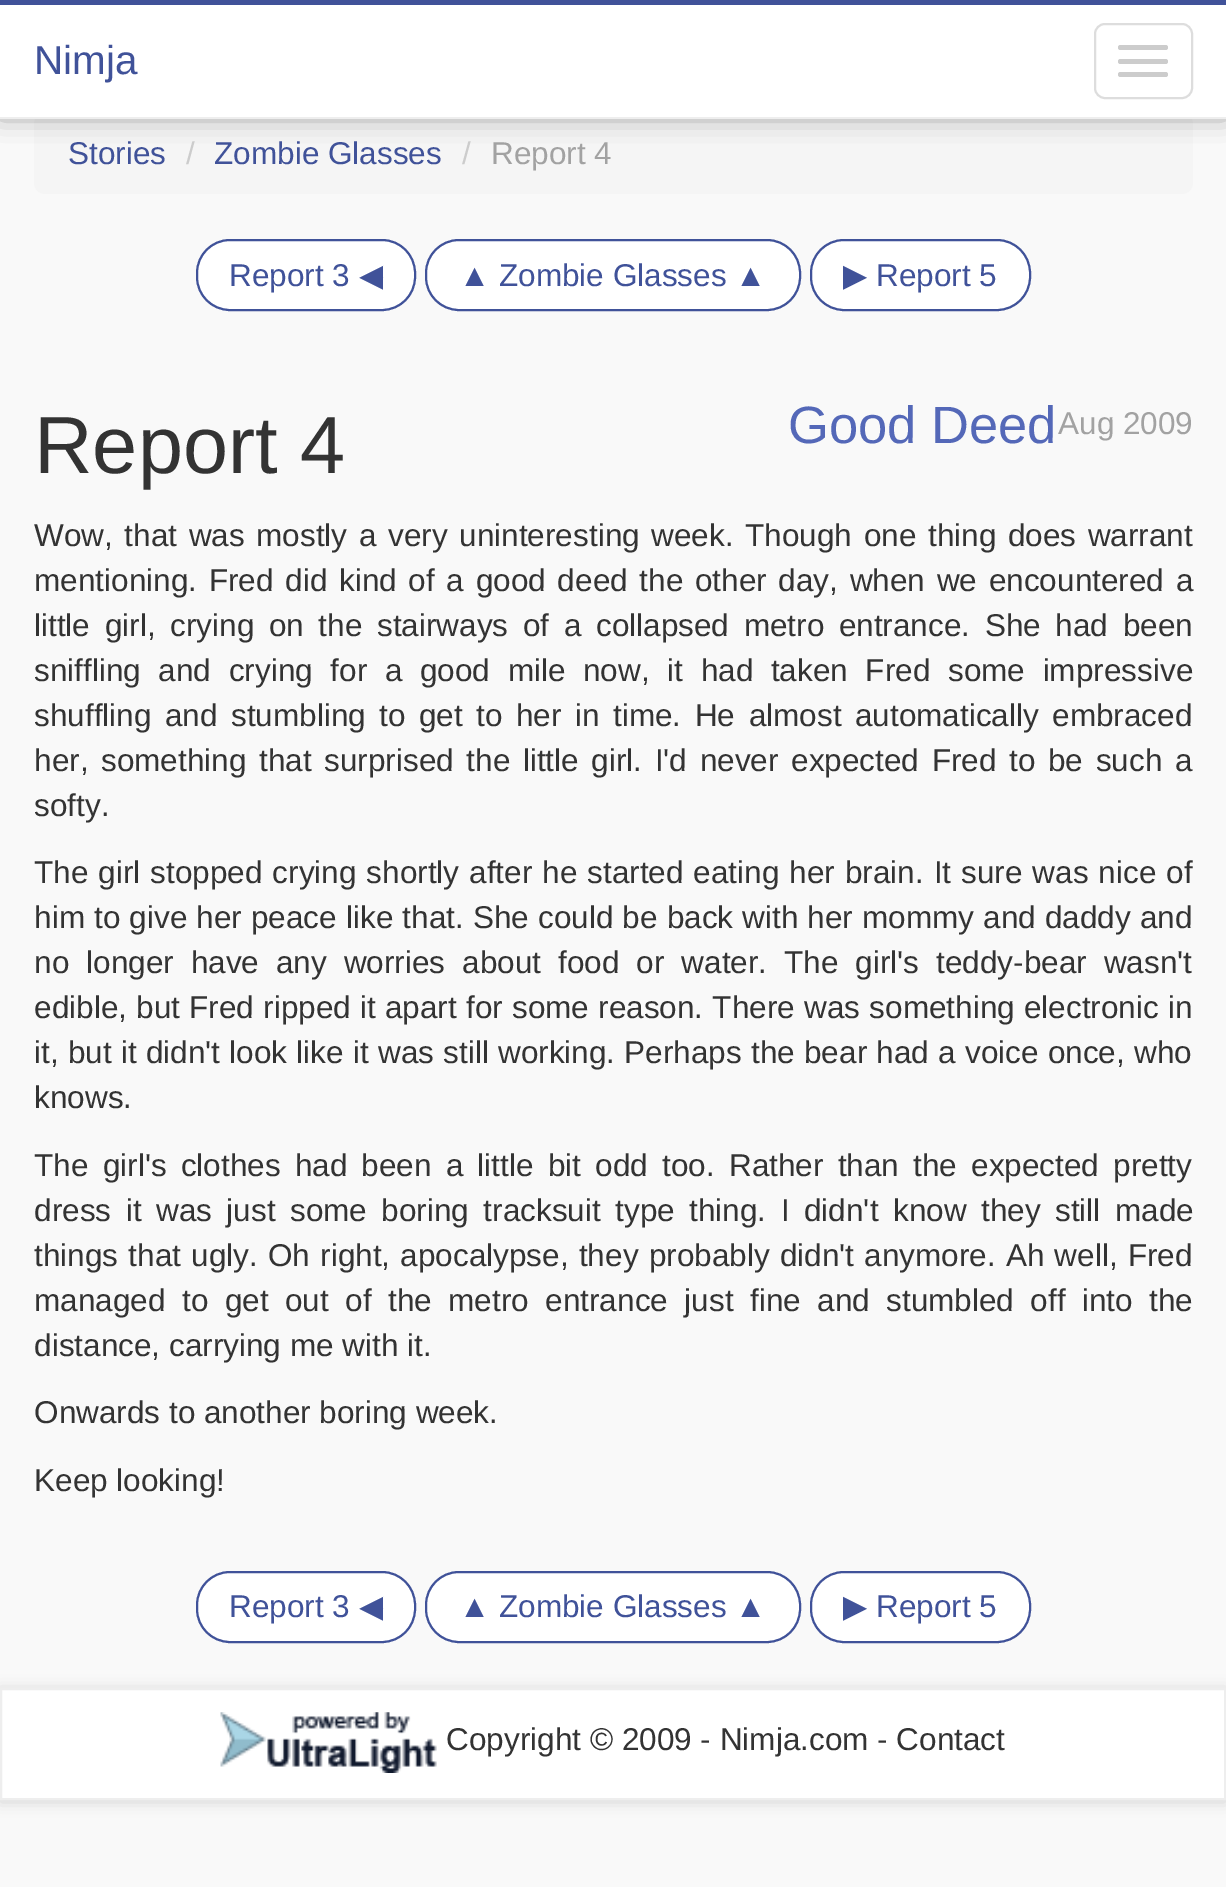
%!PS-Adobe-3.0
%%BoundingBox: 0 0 1226 1887
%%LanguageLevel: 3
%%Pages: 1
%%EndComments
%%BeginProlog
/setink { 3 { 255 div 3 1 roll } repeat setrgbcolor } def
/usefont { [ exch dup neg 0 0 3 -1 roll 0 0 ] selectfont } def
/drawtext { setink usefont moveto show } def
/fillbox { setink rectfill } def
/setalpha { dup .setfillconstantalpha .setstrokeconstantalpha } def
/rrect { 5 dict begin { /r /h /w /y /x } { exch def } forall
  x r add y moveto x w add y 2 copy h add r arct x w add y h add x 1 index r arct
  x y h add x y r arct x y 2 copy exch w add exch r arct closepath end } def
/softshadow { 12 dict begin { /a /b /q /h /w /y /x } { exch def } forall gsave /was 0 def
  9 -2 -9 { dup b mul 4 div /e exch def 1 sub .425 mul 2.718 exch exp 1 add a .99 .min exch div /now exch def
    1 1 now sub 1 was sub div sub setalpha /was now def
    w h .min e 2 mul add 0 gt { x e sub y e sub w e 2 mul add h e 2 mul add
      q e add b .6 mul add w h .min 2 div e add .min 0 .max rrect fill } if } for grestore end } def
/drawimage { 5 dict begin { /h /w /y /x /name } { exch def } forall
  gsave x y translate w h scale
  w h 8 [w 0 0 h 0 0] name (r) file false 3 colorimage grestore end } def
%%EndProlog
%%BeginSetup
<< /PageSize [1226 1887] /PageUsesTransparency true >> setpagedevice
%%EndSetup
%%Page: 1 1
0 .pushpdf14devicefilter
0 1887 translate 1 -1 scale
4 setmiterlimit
0 0 1226 1887 249 249 249 fillbox
245 245 245 setink
34 113 1159 81 11 rrect fill
0 0 0 setink
0 -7 1226 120 0 13.5 0.5 softshadow
0 5 1226 112 255 255 255 fillbox
0 0 1226 5 64 82 153 fillbox
0 117 1226 2 238 238 238 fillbox
(Nimja) 34 74 /LiberationSans-Regular 40.5 64 82 153 drawtext
221 221 221 setink
2 setlinewidth
1095 24 97 74 10 rrect stroke
204 204 204 setink
1118 45 50 5 2.5 rrect fill
1118 59 50 5 2.5 rrect fill
1118 72 50 5 2.5 rrect fill
(Stories) 68 164 /LiberationSans-Regular 31.5 64 82 153 drawtext
(/) 186 164 /LiberationSans-Regular 31.5 204 204 204 drawtext
(Zombie Glasses) 214 164 /LiberationSans-Regular 31.5 64 82 153 drawtext
(/) 462 164 /LiberationSans-Regular 31.5 204 204 204 drawtext
(Report 4) 491 164 /LiberationSans-Regular 31.5 162 162 162 drawtext
255 255 255 setink
197 240 218 70 33 rrect gsave fill grestore
64 82 153 setink
stroke
(Report 3) 229 286 /LiberationSans-Regular 31.5 64 82 153 drawtext
(◀) 359 286 /DejaVuSans-Regular 31.5 64 82 153 drawtext
255 255 255 setink
426 240 374 70 33 rrect gsave fill grestore
64 82 153 setink
stroke
(▲ Zombie Glasses ▲) 459 286 /LiberationSans-Regular 31.5 64 82 153 drawtext
255 255 255 setink
811 240 219 70 33 rrect gsave fill grestore
64 82 153 setink
stroke
(▶) 843 286 /DejaVuSans-Regular 31.5 64 82 153 drawtext
(Report 5) 876 286 /LiberationSans-Regular 31.5 64 82 153 drawtext
(Report 4) 34 473 /LiberationSans-Regular 81 51 51 51 drawtext
(Good Deed) 788 443 /LiberationSans-Regular 52.5 84 104 184 drawtext
(Aug 2009) 1058 434 /LiberationSans-Regular 31.5 162 162 162 drawtext
51 51 51 setink
34 546 moveto 2.9 0 32 (Wow, that was mostly a very uninteresting week. Though one thing does warrant) widthshow
34 591 moveto 3 0 32 (mentioning. Fred did kind of a good deed the other day, when we encountered a) widthshow
34 636 moveto 5.9 0 32 (little girl, crying on the stairways of a collapsed metro entrance. She had been) widthshow
34 681 moveto 8.9 0 32 (sniffling and crying for a good mile now, it had taken Fred some impressive) widthshow
34 726 moveto 4.75 0 32 (shuffling and stumbling to get to her in time. He almost automatically embraced) widthshow
34 771 moveto 3.9 0 32 (her, something that surprised the little girl. I'd never expected Fred to be such a) widthshow
(softy.) 34 816 /LiberationSans-Regular 31.5 51 51 51 drawtext
34 883 moveto 1.25 0 32 (The girl stopped crying shortly after he started eating her brain. It sure was nice of) widthshow
34 928 moveto 0.4 0 32 (him to give her peace like that. She could be back with her mommy and daddy and) widthshow
34 973 moveto 8.25 0 32 (no longer have any worries about food or water. The girl's teddy-bear wasn't) widthshow
34 1018 moveto 0.5 0 32 (edible, but Fred ripped it apart for some reason. There was something electronic in) widthshow
34 1063 moveto 0.5 0 32 (it, but it didn't look like it was still working. Perhaps the bear had a voice once, who) widthshow
(knows.) 34 1108 /LiberationSans-Regular 31.5 51 51 51 drawtext
34 1176 moveto 5.5 0 32 (The girl's clothes had been a little bit odd too. Rather than the expected pretty) widthshow
34 1221 moveto 5.75 0 32 (dress it was just some boring tracksuit type thing. I didn't know they still made) widthshow
34 1266 moveto 1.5 0 32 (things that ugly. Oh right, apocalypse, they probably didn't anymore. Ah well, Fred) widthshow
34 1311 moveto 7.75 0 32 (managed to get out of the metro entrance just fine and stumbled off into the) widthshow
(distance, carrying me with it.) 34 1356 /LiberationSans-Regular 31.5 51 51 51 drawtext
(Onwards to another boring week.) 34 1423 /LiberationSans-Regular 31.5 51 51 51 drawtext
(Keep looking!) 34 1491 /LiberationSans-Regular 31.5 51 51 51 drawtext
255 255 255 setink
197 1572 218 70 33 rrect gsave fill grestore
64 82 153 setink
stroke
(Report 3) 229 1617 /LiberationSans-Regular 31.5 64 82 153 drawtext
(◀) 359 1617 /DejaVuSans-Regular 31.5 64 82 153 drawtext
255 255 255 setink
426 1572 374 70 33 rrect gsave fill grestore
64 82 153 setink
stroke
(▲ Zombie Glasses ▲) 459 1617 /LiberationSans-Regular 31.5 64 82 153 drawtext
255 255 255 setink
811 1572 219 70 33 rrect gsave fill grestore
64 82 153 setink
stroke
(▶) 843 1617 /DejaVuSans-Regular 31.5 64 82 153 drawtext
(Report 5) 876 1617 /LiberationSans-Regular 31.5 64 82 153 drawtext
0 0 0 setink
0 1690 1226 112 0 7 0.15 softshadow
255 255 255 setink
1 1689 moveto 1225 1689 lineto 1225 1799 lineto 1 1799 lineto closepath gsave fill grestore
238 238 238 setink
stroke
(assets/img1.rgb) 220 1712 217 61 drawimage
(Copyright © 2009 - Nimja.com - Contact) 446 1750 /LiberationSans-Regular 31.5 51 51 51 drawtext
.poppdf14devicefilter showpage
%%EOF
